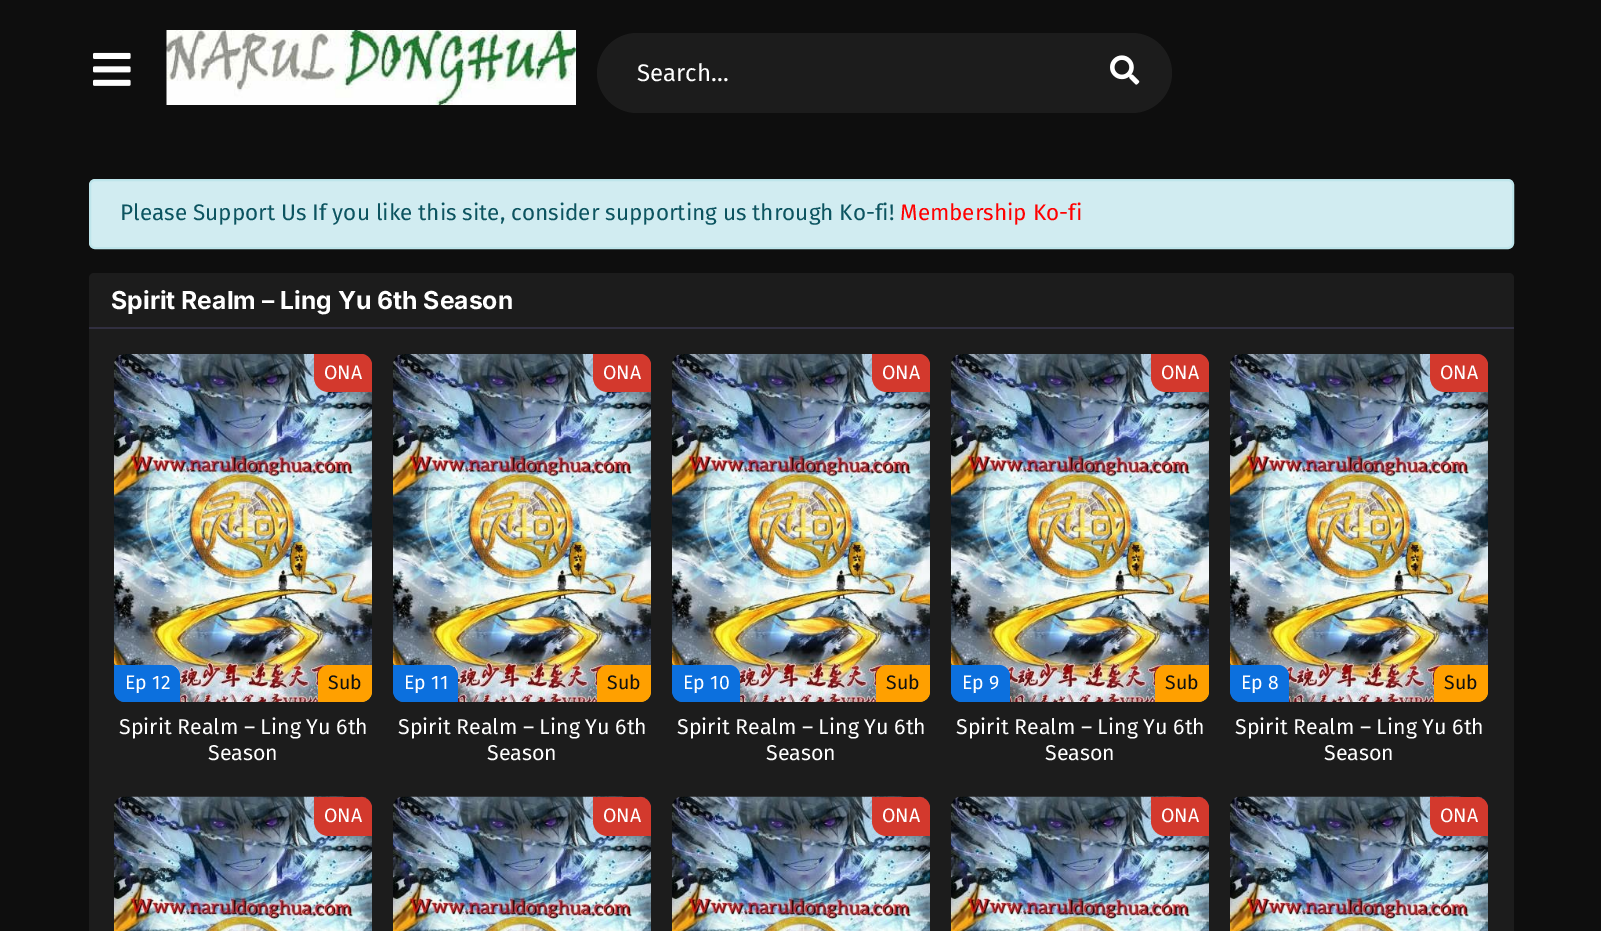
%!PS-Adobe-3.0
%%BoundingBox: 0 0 1601 931
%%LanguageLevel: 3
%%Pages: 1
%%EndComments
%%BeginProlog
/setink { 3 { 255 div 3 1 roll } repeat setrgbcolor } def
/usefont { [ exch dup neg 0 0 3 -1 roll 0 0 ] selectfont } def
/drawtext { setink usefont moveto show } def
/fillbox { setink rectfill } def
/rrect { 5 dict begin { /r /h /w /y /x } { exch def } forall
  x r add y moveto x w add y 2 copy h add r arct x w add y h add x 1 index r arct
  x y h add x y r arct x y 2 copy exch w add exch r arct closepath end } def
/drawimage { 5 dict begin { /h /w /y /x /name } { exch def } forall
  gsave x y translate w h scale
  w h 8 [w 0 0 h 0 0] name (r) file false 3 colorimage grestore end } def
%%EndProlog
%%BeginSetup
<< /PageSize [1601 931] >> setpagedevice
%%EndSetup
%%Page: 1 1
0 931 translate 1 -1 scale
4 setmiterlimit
0 0 1601 931 14 14 14 fillbox
(assets/img1.rgb) 93 52 38 34 drawimage
(assets/img2.rgb) 166 30 410 75 drawimage
28 28 28 setink
597 33 575 80 40 rrect fill
(Search...) 637 81 /FiraSans-Regular 24 255 255 255 drawtext
(assets/img3.rgb) 1110 55 30 30 drawimage
209 236 241 setink
90 180 1423 68 5 rrect gsave fill grestore
190 229 235 setink
2 setlinewidth
stroke
(Please Support Us If you like this site, consider supporting us through Ko-fi!) 120 220 /FiraSans-Regular 22.5 12 84 96 drawtext
(Membership Ko-fi) 900 220 /FiraSans-Regular 22.5 255 0 0 drawtext
28 28 28 setink
89 273 1425 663 5 rrect fill
89 327 1425 2 49 47 64 fillbox
(Spirit Realm – Ling Yu 6th Season) 111 309 /Inter-Bold 24.75 255 255 255 drawtext
51 51 51 setink
114 354 258 348 11 rrect fill
(assets/img4.rgb) 114 354 258 348 drawimage
211 57 45 setink
314 354 moveto 361 354 lineto 367 354 372 359 372 365 curveto 372 392 lineto 329 392 lineto 320.5 392 314 385.5 314 377 curveto closepath fill
(ONA) 324 379 /FiraSans-Regular 19.5 255 255 255 drawtext
12 112 222 setink
114 665 moveto 169 665 lineto 175 665 180 670 180 676 curveto 180 702 lineto 125 702 lineto 119 702 114 697 114 691 curveto closepath fill
(Ep 12) 125 689 /FiraSans-Regular 19.5 255 255 255 drawtext
255 160 0 setink
329 665 moveto 372 665 lineto 372 691 lineto 372 697 367 702 361 702 curveto 318 702 lineto 318 676 lineto 318 670 323 665 329 665 curveto closepath fill
(Sub) 328 689 /FiraSans-Regular 19.5 17 17 17 drawtext
(Spirit Realm – Ling Yu 6th) 119 734 /FiraSans-Regular 21.4 255 255 255 drawtext
(Season) 208 760 /FiraSans-Regular 21.4 255 255 255 drawtext
51 51 51 setink
393 354 258 348 11 rrect fill
(assets/img4.rgb) 393 354 258 348 drawimage
211 57 45 setink
593 354 moveto 640 354 lineto 646 354 651 359 651 365 curveto 651 392 lineto 608 392 lineto 599.5 392 593 385.5 593 377 curveto closepath fill
(ONA) 603 379 /FiraSans-Regular 19.5 255 255 255 drawtext
12 112 222 setink
393 665 moveto 447 665 lineto 453 665 458 670 458 676 curveto 458 702 lineto 404 702 lineto 398 702 393 697 393 691 curveto closepath fill
(Ep 11) 404 689 /FiraSans-Regular 19.5 255 255 255 drawtext
255 160 0 setink
608 665 moveto 651 665 lineto 651 691 lineto 651 697 646 702 640 702 curveto 597 702 lineto 597 676 lineto 597 670 602 665 608 665 curveto closepath fill
(Sub) 607 689 /FiraSans-Regular 19.5 17 17 17 drawtext
(Spirit Realm – Ling Yu 6th) 398 734 /FiraSans-Regular 21.4 255 255 255 drawtext
(Season) 487 760 /FiraSans-Regular 21.4 255 255 255 drawtext
51 51 51 setink
672 354 258 348 11 rrect fill
(assets/img4.rgb) 672 354 258 348 drawimage
211 57 45 setink
872 354 moveto 919 354 lineto 925 354 930 359 930 365 curveto 930 392 lineto 887 392 lineto 878.5 392 872 385.5 872 377 curveto closepath fill
(ONA) 882 379 /FiraSans-Regular 19.5 255 255 255 drawtext
12 112 222 setink
672 665 moveto 729 665 lineto 735 665 740 670 740 676 curveto 740 702 lineto 683 702 lineto 677 702 672 697 672 691 curveto closepath fill
(Ep 10) 683 689 /FiraSans-Regular 19.5 255 255 255 drawtext
255 160 0 setink
887 665 moveto 930 665 lineto 930 691 lineto 930 697 925 702 919 702 curveto 876 702 lineto 876 676 lineto 876 670 881 665 887 665 curveto closepath fill
(Sub) 886 689 /FiraSans-Regular 19.5 17 17 17 drawtext
(Spirit Realm – Ling Yu 6th) 677 734 /FiraSans-Regular 21.4 255 255 255 drawtext
(Season) 766 760 /FiraSans-Regular 21.4 255 255 255 drawtext
51 51 51 setink
951 354 258 348 11 rrect fill
(assets/img5.rgb) 951 354 258 348 drawimage
211 57 45 setink
1151 354 moveto 1198 354 lineto 1204 354 1209 359 1209 365 curveto 1209 392 lineto 1166 392 lineto 1157.5 392 1151 385.5 1151 377 curveto closepath fill
(ONA) 1161 379 /FiraSans-Regular 19.5 255 255 255 drawtext
12 112 222 setink
951 665 moveto 999 665 lineto 1005 665 1010 670 1010 676 curveto 1010 702 lineto 962 702 lineto 956 702 951 697 951 691 curveto closepath fill
(Ep 9) 962 689 /FiraSans-Regular 19.5 255 255 255 drawtext
255 160 0 setink
1166 665 moveto 1209 665 lineto 1209 691 lineto 1209 697 1204 702 1198 702 curveto 1155 702 lineto 1155 676 lineto 1155 670 1160 665 1166 665 curveto closepath fill
(Sub) 1165 689 /FiraSans-Regular 19.5 17 17 17 drawtext
(Spirit Realm – Ling Yu 6th) 956 734 /FiraSans-Regular 21.4 255 255 255 drawtext
(Season) 1045 760 /FiraSans-Regular 21.4 255 255 255 drawtext
51 51 51 setink
1230 354 258 348 11 rrect fill
(assets/img4.rgb) 1230 354 258 348 drawimage
211 57 45 setink
1430 354 moveto 1477 354 lineto 1483 354 1488 359 1488 365 curveto 1488 392 lineto 1445 392 lineto 1436.5 392 1430 385.5 1430 377 curveto closepath fill
(ONA) 1440 379 /FiraSans-Regular 19.5 255 255 255 drawtext
12 112 222 setink
1230 665 moveto 1278 665 lineto 1284 665 1289 670 1289 676 curveto 1289 702 lineto 1241 702 lineto 1235 702 1230 697 1230 691 curveto closepath fill
(Ep 8) 1241 689 /FiraSans-Regular 19.5 255 255 255 drawtext
255 160 0 setink
1445 665 moveto 1488 665 lineto 1488 691 lineto 1488 697 1483 702 1477 702 curveto 1434 702 lineto 1434 676 lineto 1434 670 1439 665 1445 665 curveto closepath fill
(Sub) 1444 689 /FiraSans-Regular 19.5 17 17 17 drawtext
(Spirit Realm – Ling Yu 6th) 1235 734 /FiraSans-Regular 21.4 255 255 255 drawtext
(Season) 1324 760 /FiraSans-Regular 21.4 255 255 255 drawtext
(assets/img6.rgb) 114 796 258 135 drawimage
211 57 45 setink
314 797 moveto 361 797 lineto 367 797 372 802 372 808 curveto 372 836 lineto 329 836 lineto 320.5 836 314 829.5 314 821 curveto closepath fill
(ONA) 324 822 /FiraSans-Regular 19.5 255 255 255 drawtext
(assets/img6.rgb) 393 796 258 135 drawimage
211 57 45 setink
593 797 moveto 640 797 lineto 646 797 651 802 651 808 curveto 651 836 lineto 608 836 lineto 599.5 836 593 829.5 593 821 curveto closepath fill
(ONA) 603 822 /FiraSans-Regular 19.5 255 255 255 drawtext
(assets/img6.rgb) 672 796 258 135 drawimage
211 57 45 setink
872 797 moveto 919 797 lineto 925 797 930 802 930 808 curveto 930 836 lineto 887 836 lineto 878.5 836 872 829.5 872 821 curveto closepath fill
(ONA) 882 822 /FiraSans-Regular 19.5 255 255 255 drawtext
(assets/img7.rgb) 951 796 258 135 drawimage
211 57 45 setink
1151 797 moveto 1198 797 lineto 1204 797 1209 802 1209 808 curveto 1209 836 lineto 1166 836 lineto 1157.5 836 1151 829.5 1151 821 curveto closepath fill
(ONA) 1161 822 /FiraSans-Regular 19.5 255 255 255 drawtext
(assets/img8.rgb) 1230 796 258 135 drawimage
211 57 45 setink
1430 797 moveto 1477 797 lineto 1483 797 1488 802 1488 808 curveto 1488 836 lineto 1445 836 lineto 1436.5 836 1430 829.5 1430 821 curveto closepath fill
(ONA) 1440 822 /FiraSans-Regular 19.5 255 255 255 drawtext
showpage
%%EOF
